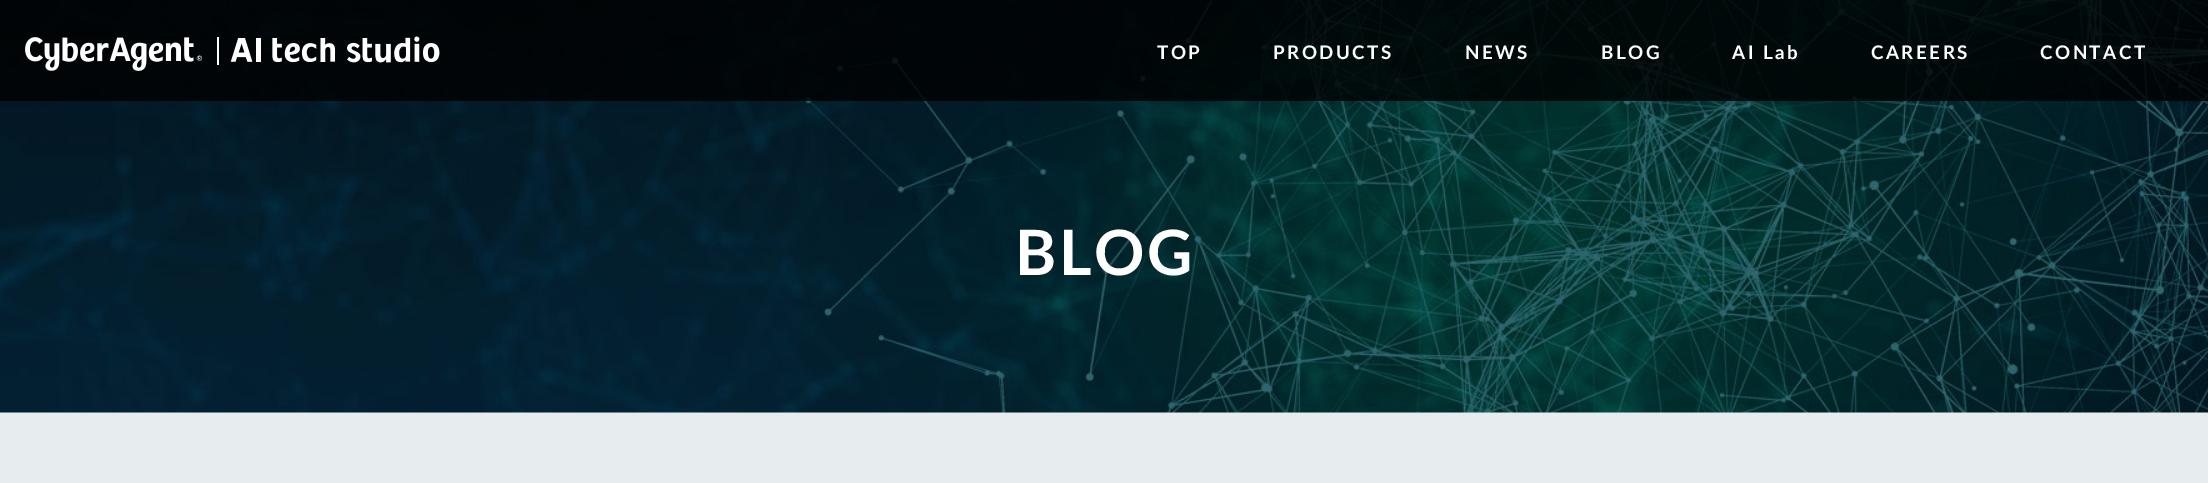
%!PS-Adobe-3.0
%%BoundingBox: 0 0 2208 483
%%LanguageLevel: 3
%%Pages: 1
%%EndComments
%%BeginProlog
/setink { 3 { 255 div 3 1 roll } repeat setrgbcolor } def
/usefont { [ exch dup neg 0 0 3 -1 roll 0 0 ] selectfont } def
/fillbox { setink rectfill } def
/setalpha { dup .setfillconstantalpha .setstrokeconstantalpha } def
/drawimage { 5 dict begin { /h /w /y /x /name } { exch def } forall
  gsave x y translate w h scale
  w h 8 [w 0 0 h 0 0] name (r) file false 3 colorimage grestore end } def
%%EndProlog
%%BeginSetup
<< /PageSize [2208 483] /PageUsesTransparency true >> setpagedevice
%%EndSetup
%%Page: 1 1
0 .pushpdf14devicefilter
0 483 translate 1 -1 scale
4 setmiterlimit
0 0 2208 483 231 236 239 fillbox
(assets/img2.rgb) 0 0 2208 413 drawimage
0.8 setalpha
0 0 2208 101 0 0 0 fillbox
1 setalpha
(assets/img1.rgb) 25 36 415 35 drawimage
/Lato-Bold 18.75 usefont
255 255 255 setink
1157 59 moveto 2.5 0 (TOP) ashow
1273 59 moveto 2.5 0 (PRODUCTS) ashow
1465 59 moveto 2.5 0 (NEWS) ashow
1601 59 moveto 2.5 0 (BLOG) ashow
1732 59 moveto 2.5 0 (AI Lab) ashow
1871 59 moveto 2.5 0 (CAREERS) ashow
2040 59 moveto 2.5 0 (CONTACT) ashow
/Lato-Bold 62.5 usefont
1015 275 moveto 2.5 0 (BLOG) ashow
.poppdf14devicefilter showpage
%%EOF
